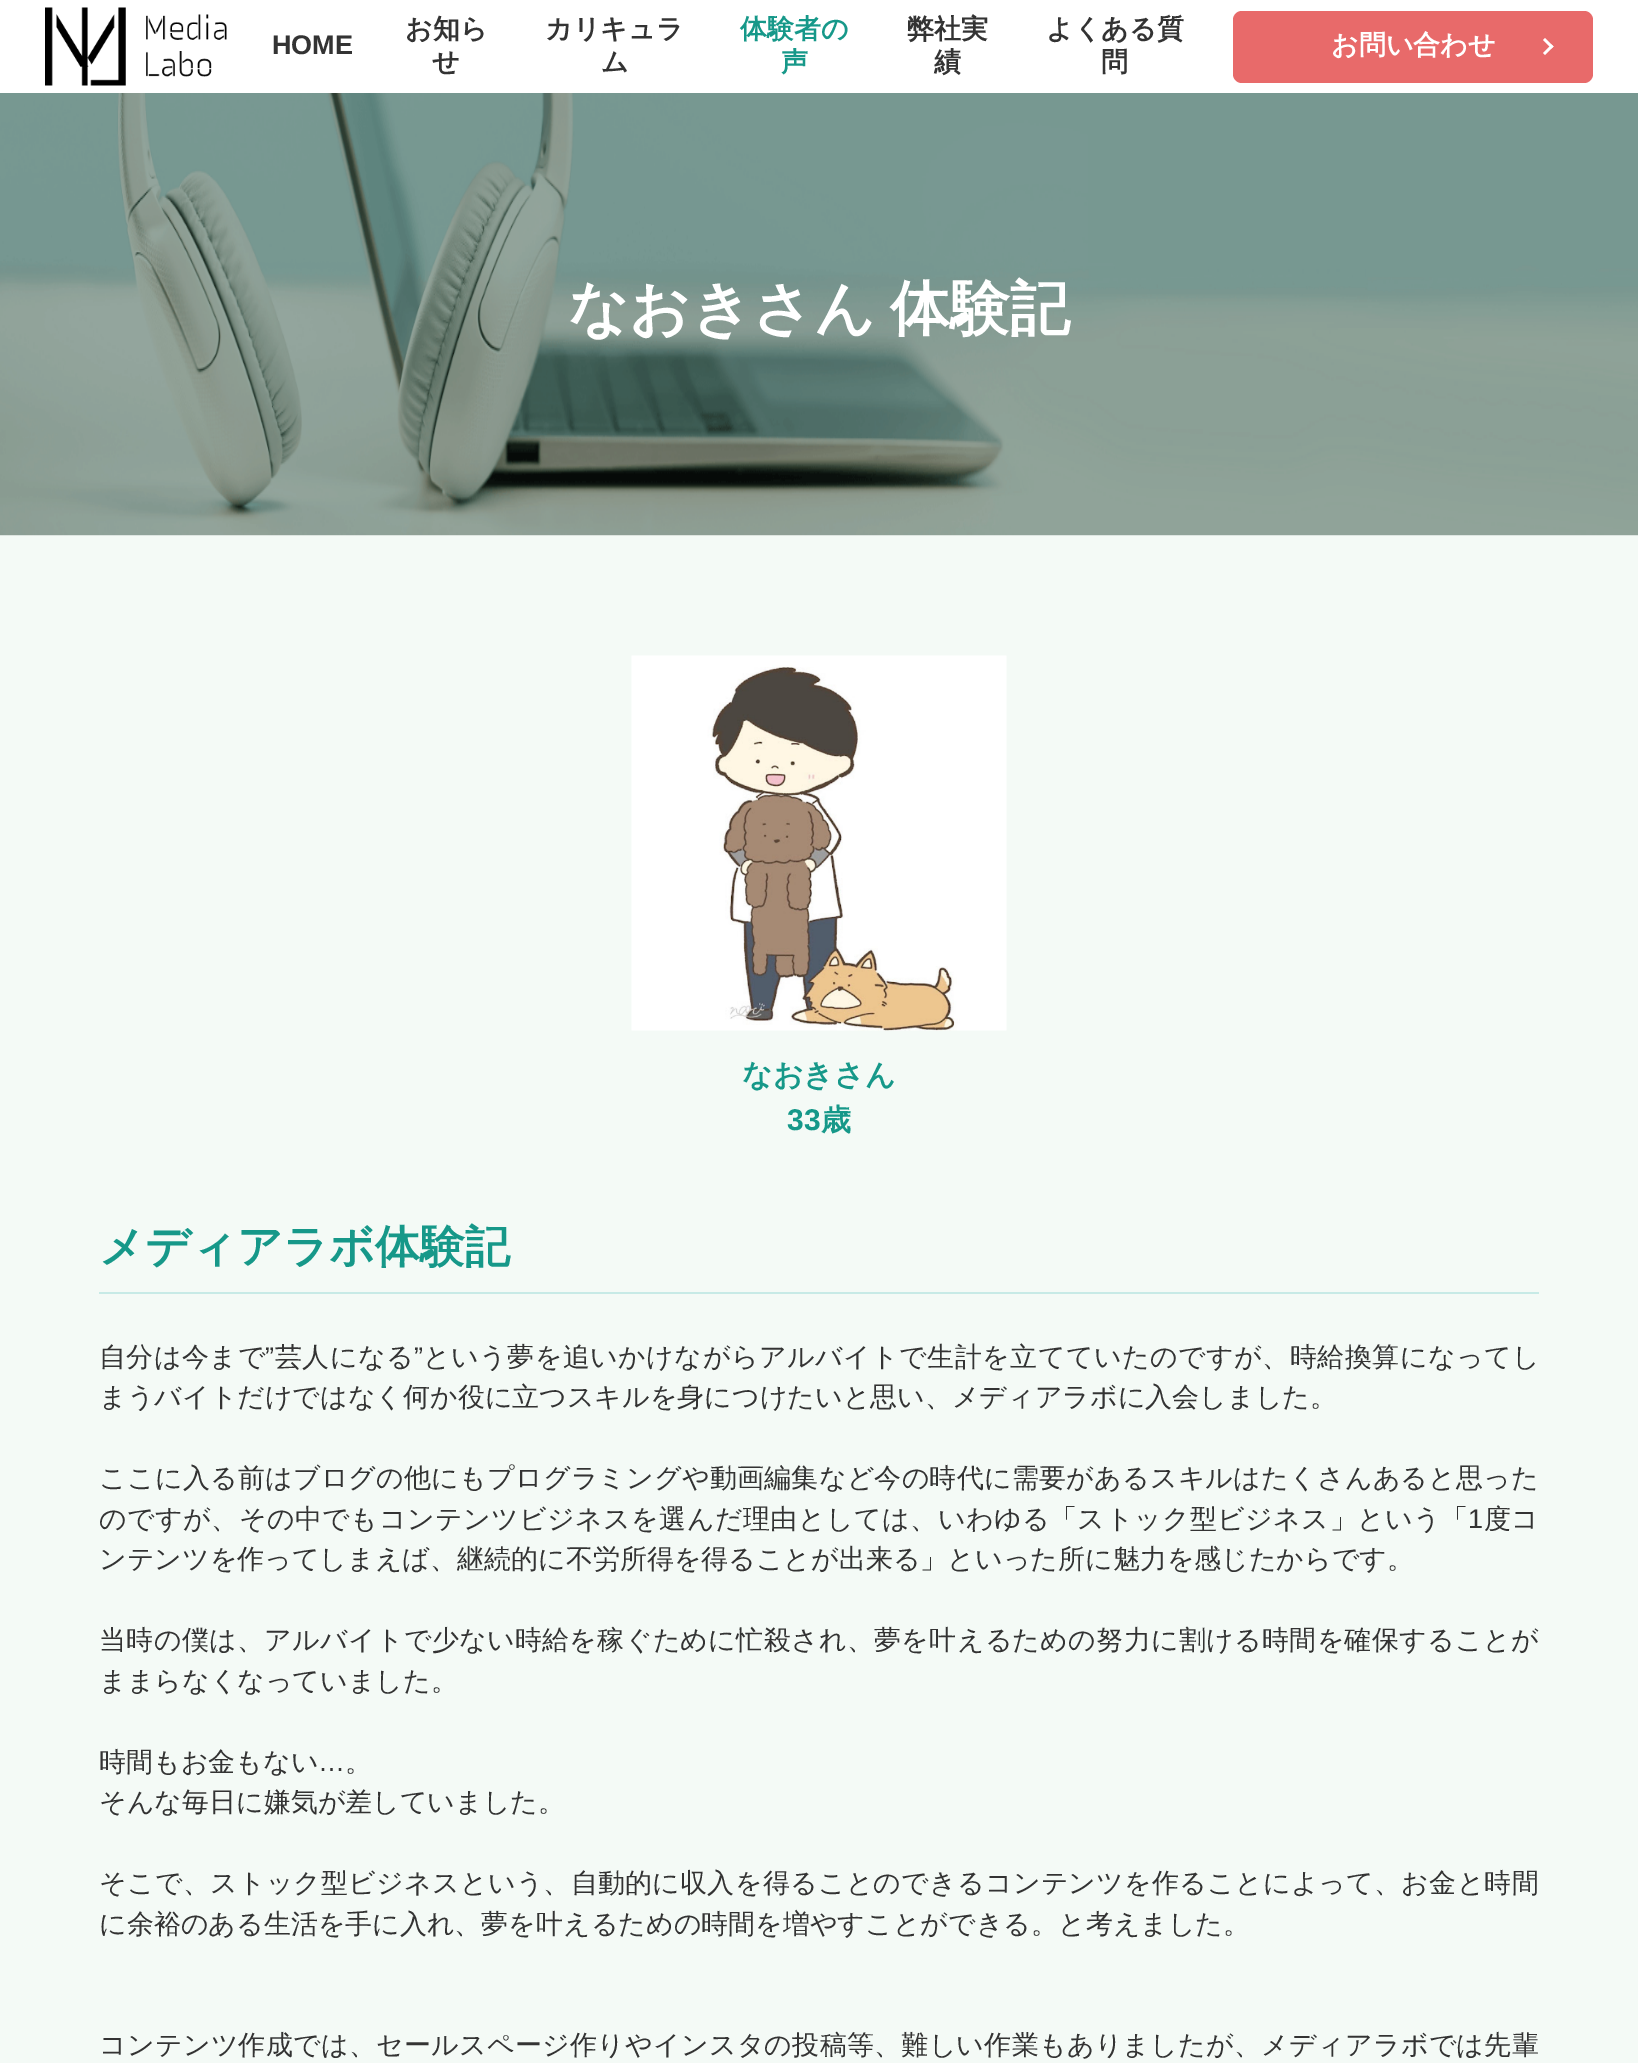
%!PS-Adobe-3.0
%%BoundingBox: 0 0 1638 2063
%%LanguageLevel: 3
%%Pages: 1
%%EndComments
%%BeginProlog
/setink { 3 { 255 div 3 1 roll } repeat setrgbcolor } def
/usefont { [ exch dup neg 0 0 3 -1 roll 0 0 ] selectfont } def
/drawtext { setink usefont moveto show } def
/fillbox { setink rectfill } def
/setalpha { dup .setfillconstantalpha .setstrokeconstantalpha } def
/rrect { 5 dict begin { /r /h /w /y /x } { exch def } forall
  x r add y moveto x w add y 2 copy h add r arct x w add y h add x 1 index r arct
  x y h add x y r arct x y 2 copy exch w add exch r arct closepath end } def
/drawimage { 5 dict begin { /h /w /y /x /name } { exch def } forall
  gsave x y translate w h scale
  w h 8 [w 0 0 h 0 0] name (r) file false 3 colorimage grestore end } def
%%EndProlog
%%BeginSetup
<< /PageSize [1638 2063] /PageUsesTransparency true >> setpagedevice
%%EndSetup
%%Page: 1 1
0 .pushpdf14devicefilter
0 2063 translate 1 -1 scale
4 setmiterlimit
0 0 1638 2063 255 255 255 fillbox
(assets/img1.rgb) 45 7 182 79 drawimage
(HOME) 272 54 /LiberationSans-Bold 27 51 51 51 drawtext
(お知ら) 405 38 /WenQuanYiZenHei-Bold 27 51 51 51 drawtext
(せ) 432 71 /WenQuanYiZenHei-Bold 27 51 51 51 drawtext
(カリキュラ) 545 38 /WenQuanYiZenHei-Bold 27 51 51 51 drawtext
(ム) 601 71 /WenQuanYiZenHei-Bold 27 51 51 51 drawtext
(体験者の) 740 38 /WenQuanYiZenHei-Bold 27 22 152 137 drawtext
(声) 781 71 /WenQuanYiZenHei-Bold 27 22 152 137 drawtext
(弊社実) 907 38 /WenQuanYiZenHei-Bold 27 51 51 51 drawtext
(績) 934 71 /WenQuanYiZenHei-Bold 27 51 51 51 drawtext
(よくある質) 1046 38 /WenQuanYiZenHei-Bold 27 51 51 51 drawtext
(問) 1101 71 /WenQuanYiZenHei-Bold 27 51 51 51 drawtext
232 106 106 setink
1233 11 360 72 9 rrect fill
(お問い合わせ) 1331 54 /WenQuanYiZenHei-Bold 27 255 255 255 drawtext
1545 38 moveto 1553.5 46.5 lineto 1551.5 48.5 lineto 1543 40 lineto closepath fill
1551.5 44.5 moveto 1553.5 46.5 lineto 1545 55 lineto 1543 53 lineto closepath fill
(assets/img2.rgb) 0 93 1638 443 drawimage
(なおきさん) 568 329 /WenQuanYiZenHei-Bold 60 255 255 255 drawtext
(体験記) 890 329 /WenQuanYiZenHei-Bold 60 255 255 255 drawtext
0 536 1638 1527 244 250 246 fillbox
0.5 setalpha
0 535 1638 1 243 249 245 fillbox
1 setalpha
(assets/img3.rgb) 631 655 376 376 drawimage
(なおきさん) 742 1085 /WenQuanYiZenHei-Bold 30 22 152 137 drawtext
(33) 787 1130 /LiberationSans-Bold 30 22 152 137 drawtext
(歳) 821 1130 /WenQuanYiZenHei-Bold 30 22 152 137 drawtext
99 1292 1440 2 199 234 230 fillbox
(メディアラボ体験記) 99 1262 /WenQuanYiZenHei-Bold 45 22 152 137 drawtext
/WenQuanYiZenHei-Medium 27 usefont
51 51 51 setink
99 1366 moveto 0.45 0 (自分は今まで) ashow
/LiberationSans-Regular 27 usefont
265 1366 moveto 0.45 0 (”) ashow
/WenQuanYiZenHei-Medium 27 usefont
275 1366 moveto 0.45 0 (芸人になる) ashow
/LiberationSans-Regular 27 usefont
414 1366 moveto 0.45 0 (”) ashow
/WenQuanYiZenHei-Medium 27 usefont
423 1366 moveto 0.45 0 (という夢を追いかけながらアルバイトで生計を立てていたのですが、時給換算になってし) ashow
(まうバイトだけではなく何か役に立つスキルを身につけたいと思い、メディアラボに入会しました。) 99 1406 /WenQuanYiZenHei-Medium 27 51 51 51 drawtext
99 1487 moveto 0.22 0 (ここに入る前はブログの他にもプログラミングや動画編集など今の時代に需要があるスキルはたくさんあると思った) ashow
99 1528 moveto 0.45 0 (のですが、その中でもコンテンツビジネスを選んだ理由としては、いわゆる「ストック型ビジネス」という「) ashow
/LiberationSans-Regular 27 usefont
1468 1528 moveto 0.45 0 (1) ashow
/WenQuanYiZenHei-Medium 27 usefont
1484 1528 moveto 0.45 0 (度コ) ashow
(ンテンツを作ってしまえば、継続的に不労所得を得ることが出来る」といった所に魅力を感じたからです。) 99 1568 /WenQuanYiZenHei-Medium 27 51 51 51 drawtext
99 1649 moveto 0.3 0 (当時の僕は、アルバイトで少ない時給を稼ぐために忙殺され、夢を叶えるための努力に割ける時間を確保することが) ashow
(ままらなくなっていました。) 99 1690 /WenQuanYiZenHei-Medium 27 51 51 51 drawtext
(時間もお金もない) 99 1771 /WenQuanYiZenHei-Medium 27 51 51 51 drawtext
(…) 318 1771 /LiberationSans-Regular 27 51 51 51 drawtext
(。) 345 1771 /WenQuanYiZenHei-Medium 27 51 51 51 drawtext
(そんな毎日に嫌気が差していました。) 99 1811 /WenQuanYiZenHei-Medium 27 51 51 51 drawtext
99 1892 moveto 0.23 0 (そこで、ストック型ビジネスという、自動的に収入を得ることのできるコンテンツを作ることによって、お金と時間) ashow
(に余裕のある生活を手に入れ、夢を叶えるための時間を増やすことができる。と考えました。) 99 1933 /WenQuanYiZenHei-Medium 27 51 51 51 drawtext
99 2054 moveto 0.25 0 (コンテンツ作成では、セールスページ作りやインスタの投稿等、難しい作業もありましたが、メディアラボでは先輩) ashow
.poppdf14devicefilter showpage
%%EOF
